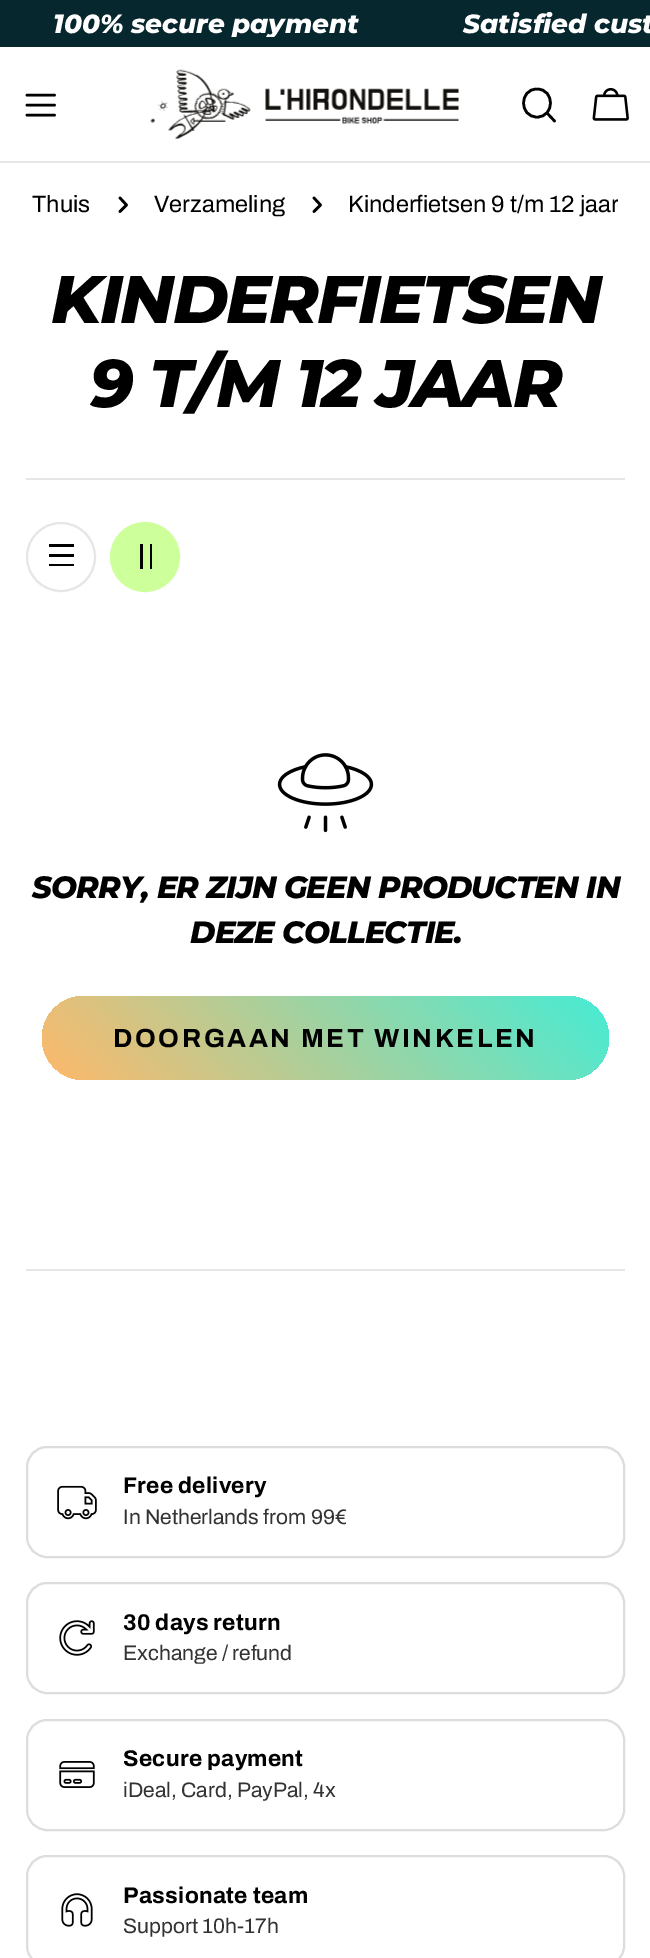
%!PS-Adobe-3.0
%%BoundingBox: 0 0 650 1958
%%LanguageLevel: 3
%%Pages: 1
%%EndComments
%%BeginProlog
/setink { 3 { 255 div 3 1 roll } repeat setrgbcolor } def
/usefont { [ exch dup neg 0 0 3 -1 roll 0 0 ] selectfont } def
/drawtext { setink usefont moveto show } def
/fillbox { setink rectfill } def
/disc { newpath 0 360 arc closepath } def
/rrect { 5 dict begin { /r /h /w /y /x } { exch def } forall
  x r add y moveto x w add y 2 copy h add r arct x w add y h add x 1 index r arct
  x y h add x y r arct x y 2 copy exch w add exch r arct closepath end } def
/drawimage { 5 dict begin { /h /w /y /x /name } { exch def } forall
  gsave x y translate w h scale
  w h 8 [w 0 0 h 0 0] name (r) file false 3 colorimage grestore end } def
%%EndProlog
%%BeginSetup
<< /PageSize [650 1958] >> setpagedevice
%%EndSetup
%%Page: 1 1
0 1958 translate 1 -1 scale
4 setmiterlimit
0 0 650 1958 255 255 255 fillbox
0 0 650 47 7 39 46 fillbox
gsave
0 11 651 26 rectclip
(100% secure payment) 53 33 /Montserrat-ExtraBoldItalic 26.25 255 255 255 drawtext
grestore
(Satisfied cust) 463 33 /Montserrat-ExtraBoldItalic 26.25 255 255 255 drawtext
0 161 650 2 230 230 230 fillbox
0 0 0 setink
2.6 setlinewidth
1 setlinecap
1 setlinejoin
27 105 moveto 54.5 105 lineto 27 95 moveto 54.5 95 lineto 27 115 moveto 54.5 115 lineto stroke
(assets/img1.rgb) 150 69 309 70 drawimage
537 117 moveto 555 117 555 89 537 89 curveto 519 89 519 117 537 117 curveto closepath 547 113 moveto 554.5 121 lineto stroke
(assets/img2.rgb) 592 87 37 34 drawimage
(Thuis) 32 212 /Archivo-Regular 23.6 0 0 0 drawtext
120 198 moveto 126.5 205 lineto 120 211.5 lineto stroke
(Verzameling) 154 212 /Archivo-Regular 23.6 0 0 0 drawtext
314 198 moveto 320.5 205 lineto 314 211.5 lineto stroke
gsave
348 184 270 42 rectclip
(Kinderfietsen 9 t/m 12 jaar) 348 212 /Archivo-Regular 23.6 0 0 0 drawtext
grestore
/Montserrat-ExtraBoldItalic 67.25 usefont
51 323 moveto -2 0 (KINDERFIETSEN) ashow
90 407 moveto -2 0 (9 T/M 12 JAAR) ashow
26 478 599 2 230 230 230 fillbox
2 setlinewidth
0 setlinecap
0 setlinejoin
61 557 34 disc stroke
49 564 25 2 0 0 0 fillbox
49 554 25 3 0 0 0 fillbox
49 544 25 3 0 0 0 fillbox
205 255 154 setink
145 557 34 disc gsave fill grestore
stroke
140 544 3 25 0 0 0 fillbox
150 544 2 25 0 0 0 fillbox
(assets/img3.rgb) 277 753 97 80 drawimage
/Montserrat-ExtraBoldItalic 30.75 usefont
32 898 moveto -0.9 0 (SORRY, ER ZIJN GEEN PRODUCTEN IN) ashow
190 943 moveto -0.9 0 (DEZE COLLECTIE.) ashow
gsave 42 996 567 84 42 rrect clip newpath
<< /ShadingType 2 /ColorSpace /DeviceRGB /Coords [163 1201 488 875] /Extend [true true] /Function << /FunctionType 2 /Domain [0 1] /C0 [1 0.722 0.416] /C1 [0.275 0.925 0.835] /N 1 >> >> shfill grestore
/Archivo-Bold 26.25 usefont
113 1047 moveto 2.6 0 (DOORGAAN MET WINKELEN) ashow
26 1269 599 2 230 230 230 fillbox
221 221 221 setink
27 1447 597 110 20 rrect stroke
(assets/img4.rgb) 57 1485 40 35 drawimage
/Archivo-Bold 22.75 usefont
0 0 0 setink
123 1493 moveto 0.3 0 (Free delivery) ashow
(In Netherlands from 99€) 123 1524 /Archivo-Regular 21 51 51 51 drawtext
221 221 221 setink
27 1583 597 110 20 rrect stroke
(assets/img5.rgb) 59 1620 36 36 drawimage
/Archivo-Bold 22.75 usefont
0 0 0 setink
123 1630 moveto 0.3 0 (30 days return) ashow
(Exchange / refund) 123 1660 /Archivo-Regular 21 51 51 51 drawtext
221 221 221 setink
27 1720 597 110 20 rrect stroke
(assets/img6.rgb) 59 1761 36 27 drawimage
/Archivo-Bold 22.75 usefont
0 0 0 setink
123 1766 moveto 0.3 0 (Secure payment) ashow
(iDeal, Card, PayPal, 4x) 123 1797 /Archivo-Regular 21 51 51 51 drawtext
221 221 221 setink
27 1856 597 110 20 rrect stroke
(assets/img7.rgb) 61 1893 32 34 drawimage
/Archivo-Bold 22.75 usefont
0 0 0 setink
123 1903 moveto 0.3 0 (Passionate team) ashow
(Support 10h-17h) 123 1933 /Archivo-Regular 21 51 51 51 drawtext
showpage
%%EOF
